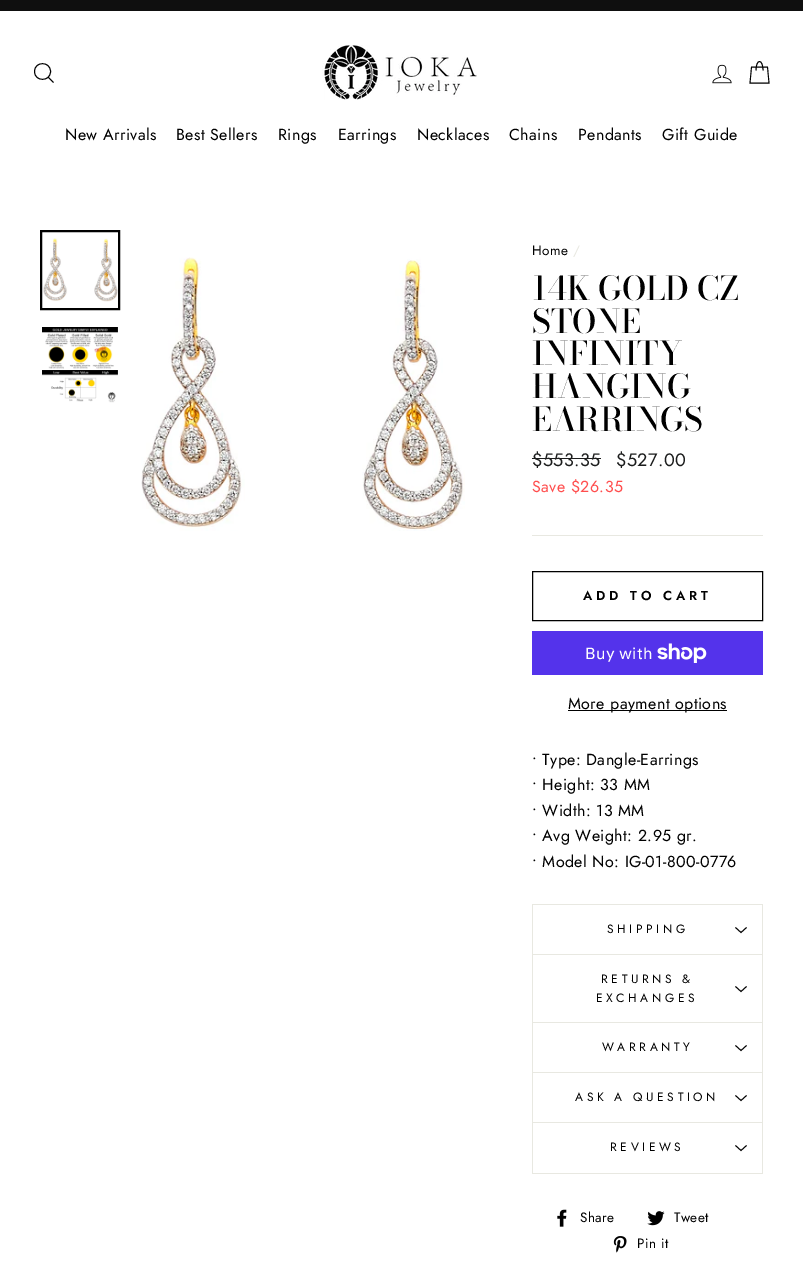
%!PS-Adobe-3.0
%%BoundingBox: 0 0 803 1262
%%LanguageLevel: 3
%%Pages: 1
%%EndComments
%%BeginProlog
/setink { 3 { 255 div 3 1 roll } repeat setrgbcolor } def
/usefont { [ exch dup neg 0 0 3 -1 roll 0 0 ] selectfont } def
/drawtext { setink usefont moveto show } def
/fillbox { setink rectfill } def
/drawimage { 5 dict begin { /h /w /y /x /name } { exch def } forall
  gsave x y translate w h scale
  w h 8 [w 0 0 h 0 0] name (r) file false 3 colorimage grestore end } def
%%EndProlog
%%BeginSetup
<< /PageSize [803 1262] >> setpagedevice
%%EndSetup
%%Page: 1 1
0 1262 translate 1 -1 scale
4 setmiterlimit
0 0 803 1262 255 255 255 fillbox
0 0 803 11 15 15 15 fillbox
0 0 0 setink
0.9 setlinewidth
50.5 71.5 moveto 50.5 82 34.5 82 34.5 71.5 curveto 34.5 61 50.5 61 50.5 71.5 curveto closepath 53.5 82.5 moveto 48.5 77.5 lineto stroke
(assets/img1.rgb) 322 45 155 55 drawimage
(assets/img2.rgb) 712 64 20 20 drawimage
756 70.5 moveto 756 58.5 763 58.5 763 70.5 curveto 751.5 67 moveto 767.5 67 lineto 769 83 lineto 750 83 lineto closepath stroke
/Jost-Regular 16 usefont
65 140 moveto 0.4 0 (New Arrivals) ashow
176 140 moveto 0.4 0 (Best Sellers) ashow
278 140 moveto 0.4 0 (Rings) ashow
338 140 moveto 0.4 0 (Earrings) ashow
417 140 moveto 0.4 0 (Necklaces) ashow
509 140 moveto 0.4 0 (Chains) ashow
578 140 moveto 0.4 0 (Pendants) ashow
662 140 moveto 0.4 0 (Gift Guide) ashow
2 setlinewidth
41 231 78 78 rectstroke
(assets/img3.rgb) 43 238 75 64 drawimage
(assets/img4.rgb) 42 327 76 76 drawimage
(assets/img5.rgb) 141 257 324 274 drawimage
/Jost-Regular 13.5 usefont
532 255 moveto 0.4 0 (Home) ashow
232 232 225 setink
573 255 moveto 0.4 0 (/) ashow
(14K GOLD CZ) 532 300 /BodoniModa-Medium 32.75 0 0 0 drawtext
(STONE) 532 333 /BodoniModa-Medium 32.75 0 0 0 drawtext
(INFINITY) 532 365 /BodoniModa-Medium 32.75 0 0 0 drawtext
(HANGING) 532 398 /BodoniModa-Medium 32.75 0 0 0 drawtext
(EARRINGS) 532 431 /BodoniModa-Medium 32.75 0 0 0 drawtext
/Jost-Regular 18 usefont
28 29 29 setink
532 466 moveto 0.4 0 ($553.35) ashow
532 458 69 1 28 29 29 fillbox
616 466 moveto 0.4 0 ($527.00) ashow
/Jost-Regular 16 usefont
255 78 78 setink
532 492 moveto 0.4 0 (Save $26.35) ashow
532 535 231 1 232 232 225 fillbox
0 0 0 setink
1 setlinewidth
532.5 571.5 230 49 rectstroke
/Jost-SemiBold 13 usefont
583 600 moveto 3.9 0 (ADD TO CART) ashow
532 631 231 44 84 51 235 fillbox
/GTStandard-Regular 16 usefont
255 255 255 setink
585 659 moveto 0.4 0 (Buy with) ashow
(assets/img6.rgb) 657 643 50 20 drawimage
568 710 159 1 0 0 0 fillbox
/Jost-Regular 16 usefont
568 709 moveto 0.4 0 (More payment options) ashow
532 765 moveto 0.4 0 (• Type: Dangle-Earrings) ashow
532 790 moveto 0.4 0 (• Height: 33 MM) ashow
532 816 moveto 0.4 0 (• Width: 13 MM) ashow
532 841 moveto 0.4 0 (• Avg Weight: 2.95 gr.) ashow
532 867 moveto 0.4 0 (• Model No: IG-01-800-0776) ashow
532 1173 231 1 232 232 225 fillbox
532 904 231 1 232 232 225 fillbox
762 904 1 51 232 232 225 fillbox
532 904 1 51 232 232 225 fillbox
/Jost-Regular 12 usefont
0 0 0 setink
607 933 moveto 3.6 0 (SHIPPING) ashow
0.9 setlinewidth
735.5 927.5 moveto 741 932.5 lineto 746.5 927.5 lineto stroke
532 954 231 1 232 232 225 fillbox
762 954 1 69 232 232 225 fillbox
532 954 1 69 232 232 225 fillbox
0 0 0 setink
601 983 moveto 3.6 0 (RETURNS &) ashow
735.5 986.5 moveto 741 991.5 lineto 746.5 986.5 lineto stroke
596 1002 moveto 3.6 0 (EXCHANGES) ashow
532 1022 231 1 232 232 225 fillbox
762 1022 1 50 232 232 225 fillbox
532 1022 1 50 232 232 225 fillbox
0 0 0 setink
602 1051 moveto 3.6 0 (WARRANTY) ashow
735.5 1045.5 moveto 741 1050.5 lineto 746.5 1045.5 lineto stroke
532 1072 231 1 232 232 225 fillbox
762 1072 1 50 232 232 225 fillbox
532 1072 1 50 232 232 225 fillbox
0 0 0 setink
575 1101 moveto 3.6 0 (ASK A QUESTION) ashow
735.5 1095.5 moveto 741 1100.5 lineto 746.5 1095.5 lineto stroke
532 1122 231 1 232 232 225 fillbox
762 1122 1 51 232 232 225 fillbox
532 1122 1 51 232 232 225 fillbox
0 0 0 setink
610 1151 moveto 3.6 0 (REVIEWS) ashow
735.5 1145.5 moveto 741 1150.5 lineto 746.5 1145.5 lineto stroke
(assets/img7.rgb) 557 1209 10 18 drawimage
/Jost-Regular 13.5 usefont
580 1222 moveto 0.4 0 (Share) ashow
(assets/img8.rgb) 647 1211 18 15 drawimage
674 1222 moveto 0.4 0 (Tweet) ashow
(assets/img9.rgb) 613 1236 14 17 drawimage
637 1248 moveto 0.4 0 (Pin it) ashow
showpage
%%EOF
